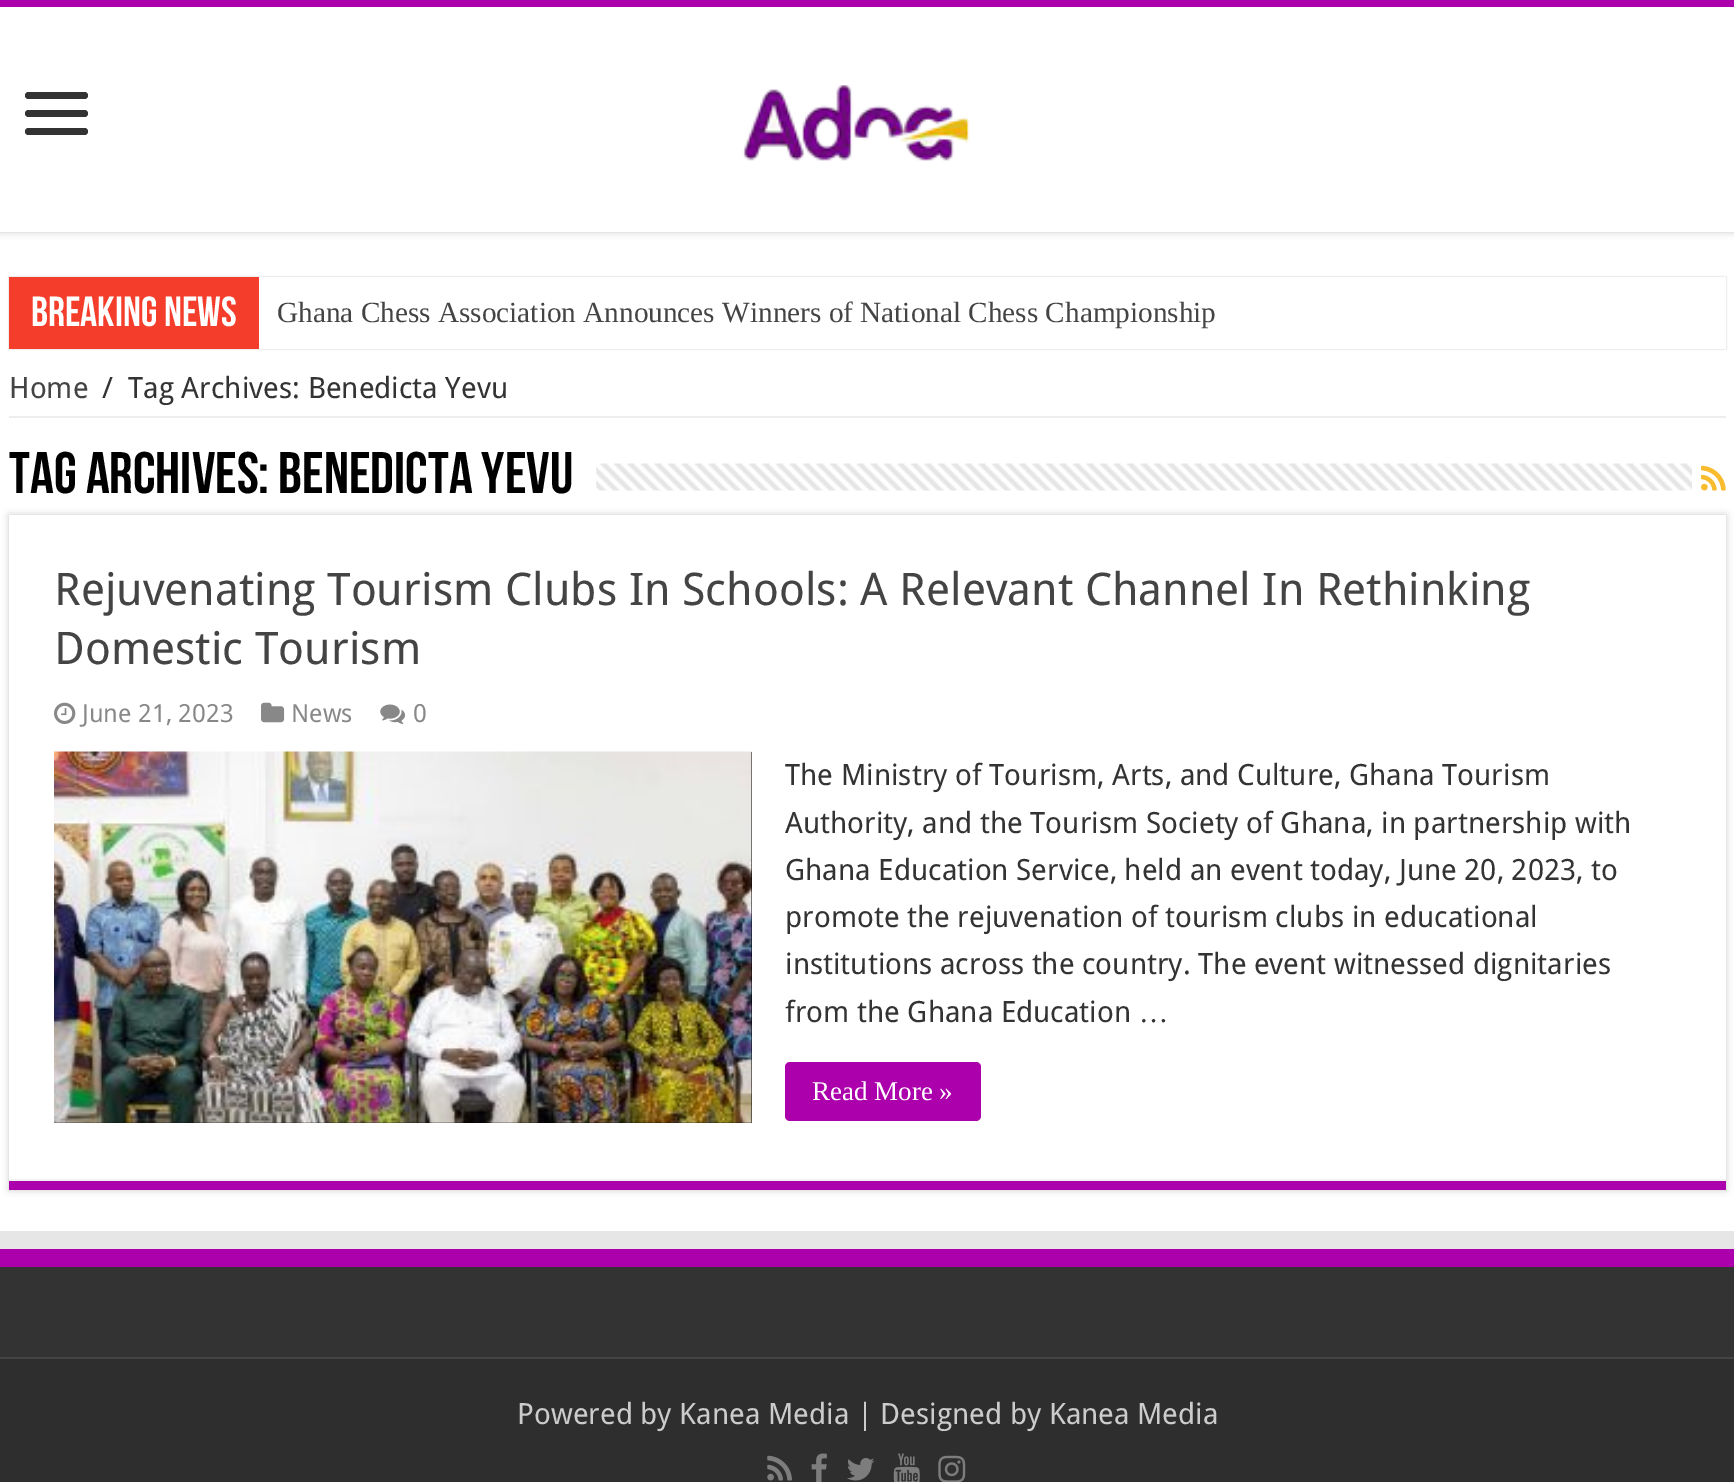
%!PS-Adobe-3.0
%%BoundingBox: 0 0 1734 1482
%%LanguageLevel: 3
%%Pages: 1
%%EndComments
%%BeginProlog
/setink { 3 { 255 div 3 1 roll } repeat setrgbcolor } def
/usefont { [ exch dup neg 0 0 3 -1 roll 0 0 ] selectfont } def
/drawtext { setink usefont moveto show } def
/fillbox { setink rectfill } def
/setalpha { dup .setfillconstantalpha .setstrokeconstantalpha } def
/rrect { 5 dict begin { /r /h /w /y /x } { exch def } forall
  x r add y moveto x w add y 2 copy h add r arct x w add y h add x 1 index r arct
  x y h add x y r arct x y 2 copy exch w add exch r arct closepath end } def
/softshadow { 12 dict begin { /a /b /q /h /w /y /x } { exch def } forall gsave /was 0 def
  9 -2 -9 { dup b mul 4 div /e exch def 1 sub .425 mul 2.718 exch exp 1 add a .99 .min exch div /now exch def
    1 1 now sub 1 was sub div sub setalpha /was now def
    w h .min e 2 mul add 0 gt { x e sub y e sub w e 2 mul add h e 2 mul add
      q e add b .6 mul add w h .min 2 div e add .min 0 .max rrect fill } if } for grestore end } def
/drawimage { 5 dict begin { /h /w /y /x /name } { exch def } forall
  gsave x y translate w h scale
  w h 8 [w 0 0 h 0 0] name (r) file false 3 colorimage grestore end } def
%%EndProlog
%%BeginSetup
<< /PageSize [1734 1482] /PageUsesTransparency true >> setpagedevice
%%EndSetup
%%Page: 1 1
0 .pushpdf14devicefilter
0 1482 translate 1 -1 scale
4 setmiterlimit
0 0 1734 1482 255 255 255 fillbox
202 202 202 setink
0 0 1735 232 0 3.5 1 softshadow
0 7 1734 225 255 255 255 fillbox
0 0 1734 7 171 0 171 fillbox
51 51 51 setink
25 92 63 7 3.5 rrect fill
25 110 63 7 3.5 rrect fill
25 128 63 7 3.5 rrect fill
(assets/img1.rgb) 742 84 228 77 drawimage
202 202 202 setink
9 277 1717 72 0 1 1 softshadow
259 277 1467 72 255 255 255 fillbox
9 277 250 72 244 61 42 fillbox
(Breaking News) 31 326 /BebasNeue-Bold 42 255 255 255 drawtext
(Ghana Chess Association Announces Winners of National Chess Championship) 277 322 /LiberationSerif-Regular 29.25 68 68 68 drawtext
9 416 1717 2 238 238 238 fillbox
(Home) 9 398 /DroidSans-Regular 29.25 68 68 68 drawtext
(/) 102 398 /DroidSans-Regular 29.25 51 51 51 drawtext
(Tag Archives: Benedicta Yevu) 128 398 /DroidSans-Regular 29.25 51 51 51 drawtext
(Tag Archives: Benedicta Yevu) 9 493 /BebasNeue-Bold 58.5 0 0 0 drawtext
(assets/img2.rgb) 596 463 1096 28 drawimage
(assets/img3.rgb) 1701 465 25 26 drawimage
202 202 202 setink
9 515 1717 675 0 3.5 1 softshadow
9 515 1717 664 255 255 255 fillbox
9 1181 1717 9 171 0 171 fillbox
9 1179 1717 2 242 242 242 fillbox
(Rejuvenating Tourism Clubs In Schools: A Relevant Channel In Rethinking) 54 605 /DroidSans-Regular 45 68 68 68 drawtext
(Domestic Tourism) 54 664 /DroidSans-Regular 45 68 68 68 drawtext
(assets/img4.rgb) 54 702 22 22 drawimage
(June 21, 2023) 82 722 /DroidSans-Regular 25 136 136 136 drawtext
(assets/img5.rgb) 261 702 24 21 drawimage
(News) 291 722 /DroidSans-Regular 25 136 136 136 drawtext
(assets/img6.rgb) 380 704 26 20 drawimage
(0) 413 722 /DroidSans-Regular 25 136 136 136 drawtext
54 752 698 371 0 0 0 fillbox
(assets/img7.rgb) 54 751 698 372 drawimage
(The Ministry of Tourism, Arts, and Culture, Ghana Tourism) 785 785 /DroidSans-Regular 29.25 51 51 51 drawtext
(Authority, and the Tourism Society of Ghana, in partnership with) 785 833 /DroidSans-Regular 29.25 51 51 51 drawtext
(Ghana Education Service, held an event today, June 20, 2023, to) 785 880 /DroidSans-Regular 29.25 51 51 51 drawtext
(promote the rejuvenation of tourism clubs in educational) 785 927 /DroidSans-Regular 29.25 51 51 51 drawtext
(institutions across the country. The event witnessed dignitaries) 785 974 /DroidSans-Regular 29.25 51 51 51 drawtext
(from the Ghana Education) 785 1022 /DroidSans-Regular 29.25 51 51 51 drawtext
(…) 1139 1022 /LiberationSerif-Regular 29.25 51 51 51 drawtext
171 0 171 setink
785 1062 196 59 5 rrect fill
(Read More ») 812 1100 /LiberationSerif-Regular 27 255 255 255 drawtext
230 230 230 setink
0 1231 moveto 0 1249 lineto 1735 1249 lineto 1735 1339 lineto 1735 1231 lineto closepath fill
0 1267 1734 90 51 51 51 fillbox
0 1249 1734 18 171 0 171 fillbox
0 1359 1734 123 46 46 46 fillbox
0 1357 1734 2 68 68 68 fillbox
(Powered by Kanea Media | Designed by Kanea Media) 517 1424 /DroidSans-Regular 29.25 204 204 204 drawtext
(assets/img8.rgb) 767 1455 25 26 drawimage
(assets/img9.rgb) 811 1453 16 29 drawimage
(assets/img10.rgb) 847 1458 28 23 drawimage
(assets/img11.rgb) 893 1453 27 29 drawimage
(assets/img12.rgb) 938 1455 28 27 drawimage
.poppdf14devicefilter showpage
%%EOF
